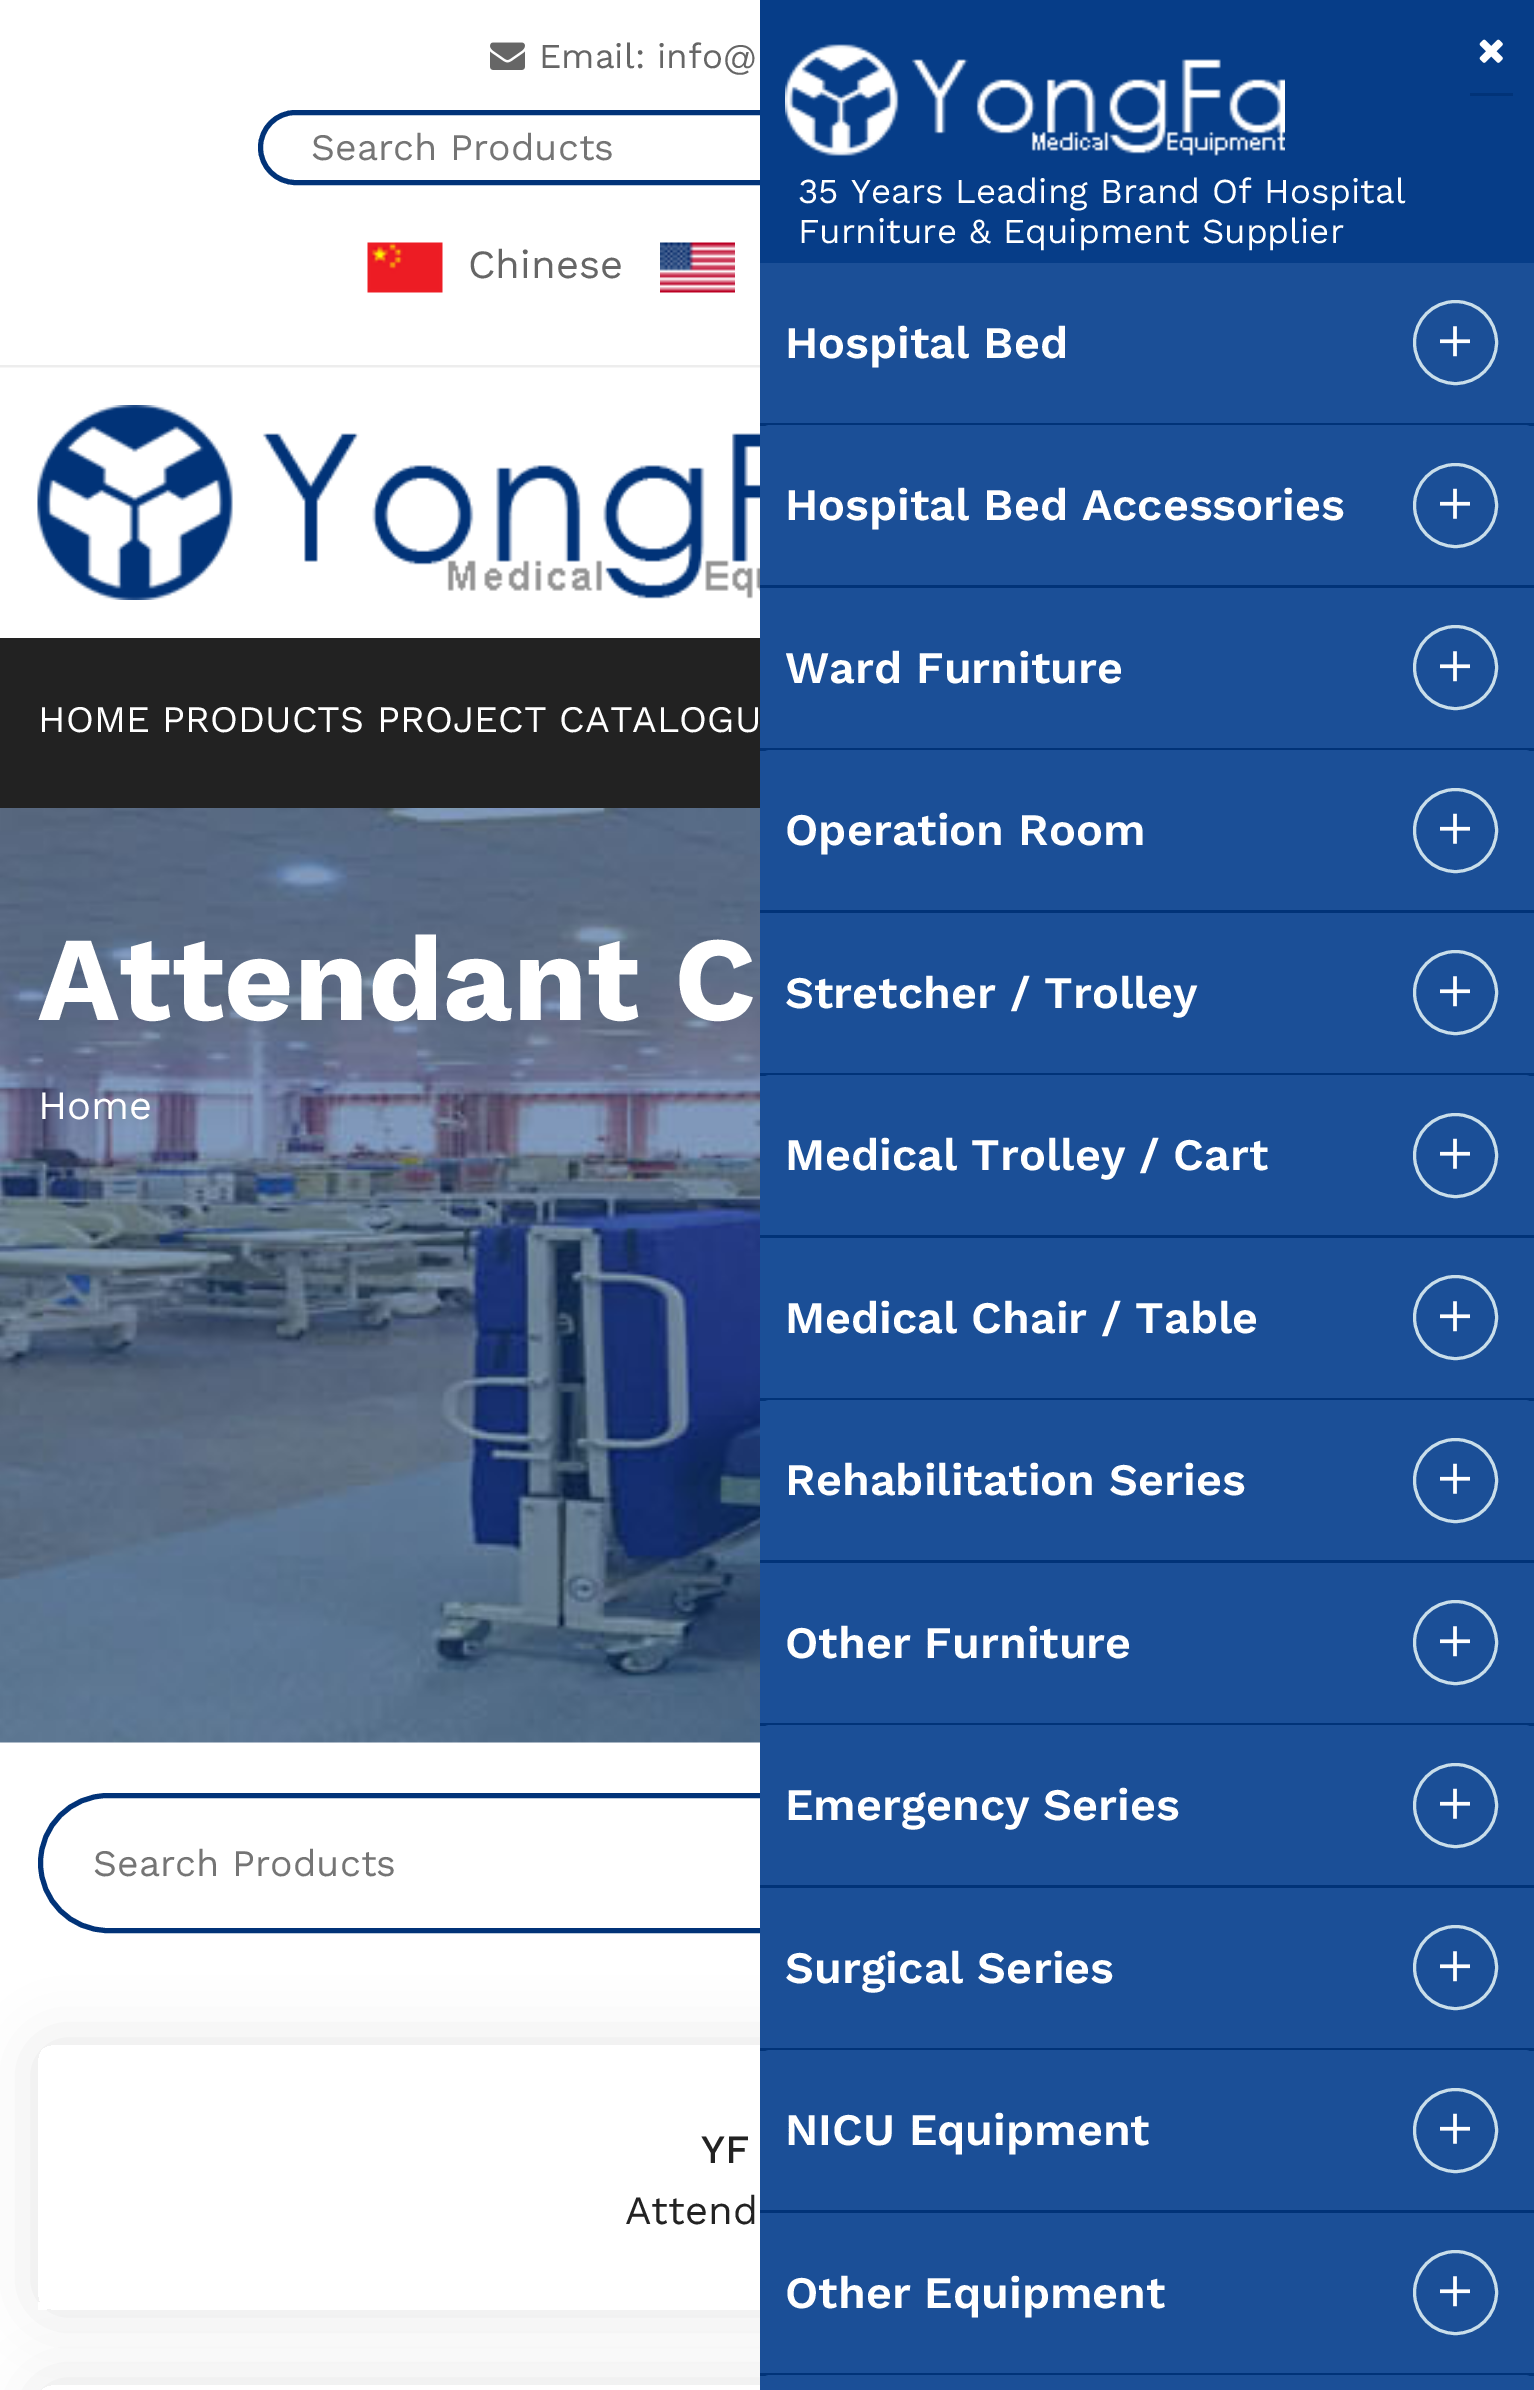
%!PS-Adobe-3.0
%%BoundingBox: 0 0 1534 2390
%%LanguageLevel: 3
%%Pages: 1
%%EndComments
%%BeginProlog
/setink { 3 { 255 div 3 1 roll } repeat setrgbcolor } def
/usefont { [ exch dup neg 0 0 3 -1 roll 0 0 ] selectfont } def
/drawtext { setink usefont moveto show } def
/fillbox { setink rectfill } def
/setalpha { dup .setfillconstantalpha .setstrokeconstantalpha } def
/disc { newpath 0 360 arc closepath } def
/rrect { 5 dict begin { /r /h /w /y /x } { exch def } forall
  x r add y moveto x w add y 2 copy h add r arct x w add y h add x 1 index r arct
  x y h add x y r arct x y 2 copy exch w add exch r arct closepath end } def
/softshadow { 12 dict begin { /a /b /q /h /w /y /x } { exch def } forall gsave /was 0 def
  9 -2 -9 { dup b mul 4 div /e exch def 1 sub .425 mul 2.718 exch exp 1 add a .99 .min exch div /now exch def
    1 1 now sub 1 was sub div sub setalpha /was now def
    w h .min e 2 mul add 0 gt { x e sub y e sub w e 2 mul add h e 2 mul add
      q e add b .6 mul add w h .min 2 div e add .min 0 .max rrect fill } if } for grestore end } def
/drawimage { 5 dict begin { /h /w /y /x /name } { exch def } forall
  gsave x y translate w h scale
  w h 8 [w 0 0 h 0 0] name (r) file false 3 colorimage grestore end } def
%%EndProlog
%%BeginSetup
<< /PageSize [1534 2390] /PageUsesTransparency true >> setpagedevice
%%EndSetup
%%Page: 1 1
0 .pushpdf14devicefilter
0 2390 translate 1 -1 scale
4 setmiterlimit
0 0 1534 2390 255 255 255 fillbox
0 365 760 3 237 237 237 fillbox
(assets/img1.rgb) 490 42 35 28 drawimage
(Email: info@) 539 68 /WorkSans-Regular 35 102 102 102 drawtext
1 51 120 setink
5 setlinewidth
260.5 112.5 1015 70 35 rrect stroke
(Search Products) 311 160 /WorkSans-Regular 37.5 117 117 117 drawtext
(assets/img2.rgb) 367 242 76 51 drawimage
(Chinese) 468 278 /WorkSans-Regular 40 102 102 102 drawtext
(assets/img3.rgb) 660 242 75 51 drawimage
(assets/img4.rgb) 0 367 760 271 drawimage
(assets/img5.rgb) 37 405 723 195 drawimage
0 638 760 170 34 34 34 fillbox
(HOME PRODUCTS PROJECT CATALOGU) 38 732 /WorkSans-Regular 37.5 255 255 255 drawtext
(assets/img6.rgb) 0 808 760 935 drawimage
(Attendant C) 38 1020 /WorkSans-Bold 120 255 255 255 drawtext
(Home) 38 1119 /WorkSans-Regular 40 255 255 255 drawtext
1 51 120 setink
40.5 1795.5 1455 135 67.5 rrect stroke
(Search Products) 93 1876 /WorkSans-Regular 37.5 117 117 117 drawtext
gsave
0 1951 moveto 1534 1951 lineto 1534 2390 lineto 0 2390 lineto closepath 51 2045 moveto 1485 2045 lineto 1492 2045 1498 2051 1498 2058 curveto 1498 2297 lineto 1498 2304 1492 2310 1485 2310 curveto 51 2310 lineto 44 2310 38 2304 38 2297 curveto 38 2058 lineto 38 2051 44 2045 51 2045 curveto closepath eoclip newpath
0 0 0 setink
38 2045 1460 265 13 31 0.1 softshadow
grestore
38 2302 9 8 255 255 255 fillbox
(YF) 701 2163 /WorkSans-Medium 40 34 34 34 drawtext
(Attend) 625 2224 /WorkSans-Regular 40 34 34 34 drawtext
gsave
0 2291 moveto 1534 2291 lineto 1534 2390 lineto 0 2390 lineto closepath 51 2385 moveto 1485 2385 lineto 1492 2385 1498 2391 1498 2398 curveto 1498 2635 lineto 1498 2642 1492 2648 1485 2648 curveto 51 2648 lineto 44 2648 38 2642 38 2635 curveto 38 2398 lineto 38 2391 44 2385 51 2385 curveto closepath eoclip newpath
0 0 0 setink
38 2385 1460 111 13 31 0.1 softshadow
grestore
760 263 774 2122 27 79 151 fillbox
760 0 774 263 6 61 136 fillbox
(assets/img7.rgb) 785 44 500 112 drawimage
1470 93 43 3 1 51 120 fillbox
(assets/img8.rgb) 1479 39 24 24 drawimage
(35 Years Leading Brand Of Hospital) 798 203 /WorkSans-Regular 35 255 255 255 drawtext
(Furniture & Equipment Supplier) 798 243 /WorkSans-Regular 35 255 255 255 drawtext
760 423 774 3 1 51 120 fillbox
(Hospital Bed) 785 358 /WorkSans-SemiBold 45 255 255 255 drawtext
201 222 234 setink
3 setlinewidth
1455.5 342.5 41 disc stroke
(assets/img9.rgb) 1440 326 30 31 drawimage
27 79 151 setink
760 425 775 163 10 rrect fill
760 585 774 3 1 51 120 fillbox
(Hospital Bed Accessories) 785 520 /WorkSans-SemiBold 45 255 255 255 drawtext
201 222 234 setink
1455.5 505.5 41 disc stroke
(assets/img10.rgb) 1440 488 30 31 drawimage
760 748 774 3 1 51 120 fillbox
(Ward Furniture) 785 683 /WorkSans-SemiBold 45 255 255 255 drawtext
201 222 234 setink
1455.5 667.5 41 disc stroke
(assets/img9.rgb) 1440 651 30 31 drawimage
27 79 151 setink
760 750 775 163 10 rrect fill
760 910 774 3 1 51 120 fillbox
(Operation Room) 785 845 /WorkSans-SemiBold 45 255 255 255 drawtext
201 222 234 setink
1455.5 830.5 41 disc stroke
(assets/img10.rgb) 1440 813 30 31 drawimage
760 1073 774 3 1 51 120 fillbox
(Stretcher / Trolley) 785 1008 /WorkSans-SemiBold 45 255 255 255 drawtext
201 222 234 setink
1455.5 992.5 41 disc stroke
(assets/img9.rgb) 1440 976 30 31 drawimage
27 79 151 setink
760 1075 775 163 10 rrect fill
760 1235 774 3 1 51 120 fillbox
(Medical Trolley / Cart) 785 1170 /WorkSans-SemiBold 45 255 255 255 drawtext
201 222 234 setink
1455.5 1155.5 41 disc stroke
(assets/img10.rgb) 1440 1138 30 31 drawimage
760 1398 774 3 1 51 120 fillbox
(Medical Chair / Table) 785 1333 /WorkSans-SemiBold 45 255 255 255 drawtext
201 222 234 setink
1455.5 1317.5 41 disc stroke
(assets/img9.rgb) 1440 1301 30 31 drawimage
27 79 151 setink
760 1400 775 163 10 rrect fill
760 1560 774 3 1 51 120 fillbox
(Rehabilitation Series) 785 1495 /WorkSans-SemiBold 45 255 255 255 drawtext
201 222 234 setink
1455.5 1480.5 41 disc stroke
(assets/img10.rgb) 1440 1463 30 31 drawimage
760 1723 774 3 1 51 120 fillbox
(Other Furniture) 785 1658 /WorkSans-SemiBold 45 255 255 255 drawtext
201 222 234 setink
1455.5 1642.5 41 disc stroke
(assets/img9.rgb) 1440 1626 30 31 drawimage
27 79 151 setink
760 1725 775 163 10 rrect fill
760 1885 774 3 1 51 120 fillbox
(Emergency Series) 785 1820 /WorkSans-SemiBold 45 255 255 255 drawtext
201 222 234 setink
1455.5 1805.5 41 disc stroke
(assets/img10.rgb) 1440 1788 30 31 drawimage
760 2048 774 3 1 51 120 fillbox
(Surgical Series) 785 1983 /WorkSans-SemiBold 45 255 255 255 drawtext
201 222 234 setink
1455.5 1967.5 41 disc stroke
(assets/img9.rgb) 1440 1951 30 31 drawimage
27 79 151 setink
760 2050 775 163 10 rrect fill
760 2210 774 3 1 51 120 fillbox
(NICU Equipment) 785 2145 /WorkSans-SemiBold 45 255 255 255 drawtext
201 222 234 setink
1455.5 2130.5 41 disc stroke
(assets/img10.rgb) 1440 2113 30 31 drawimage
760 2373 774 3 1 51 120 fillbox
(Other Equipment) 785 2308 /WorkSans-SemiBold 45 255 255 255 drawtext
201 222 234 setink
1455.5 2292.5 41 disc stroke
(assets/img9.rgb) 1440 2276 30 31 drawimage
27 79 151 setink
770 2375 moveto 1525 2375 lineto 1530.5 2375 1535 2379.5 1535 2385 curveto 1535 2390 lineto 760 2390 lineto 760 2385 lineto 760 2379.5 764.5 2375 770 2375 curveto closepath fill
.poppdf14devicefilter showpage
%%EOF
